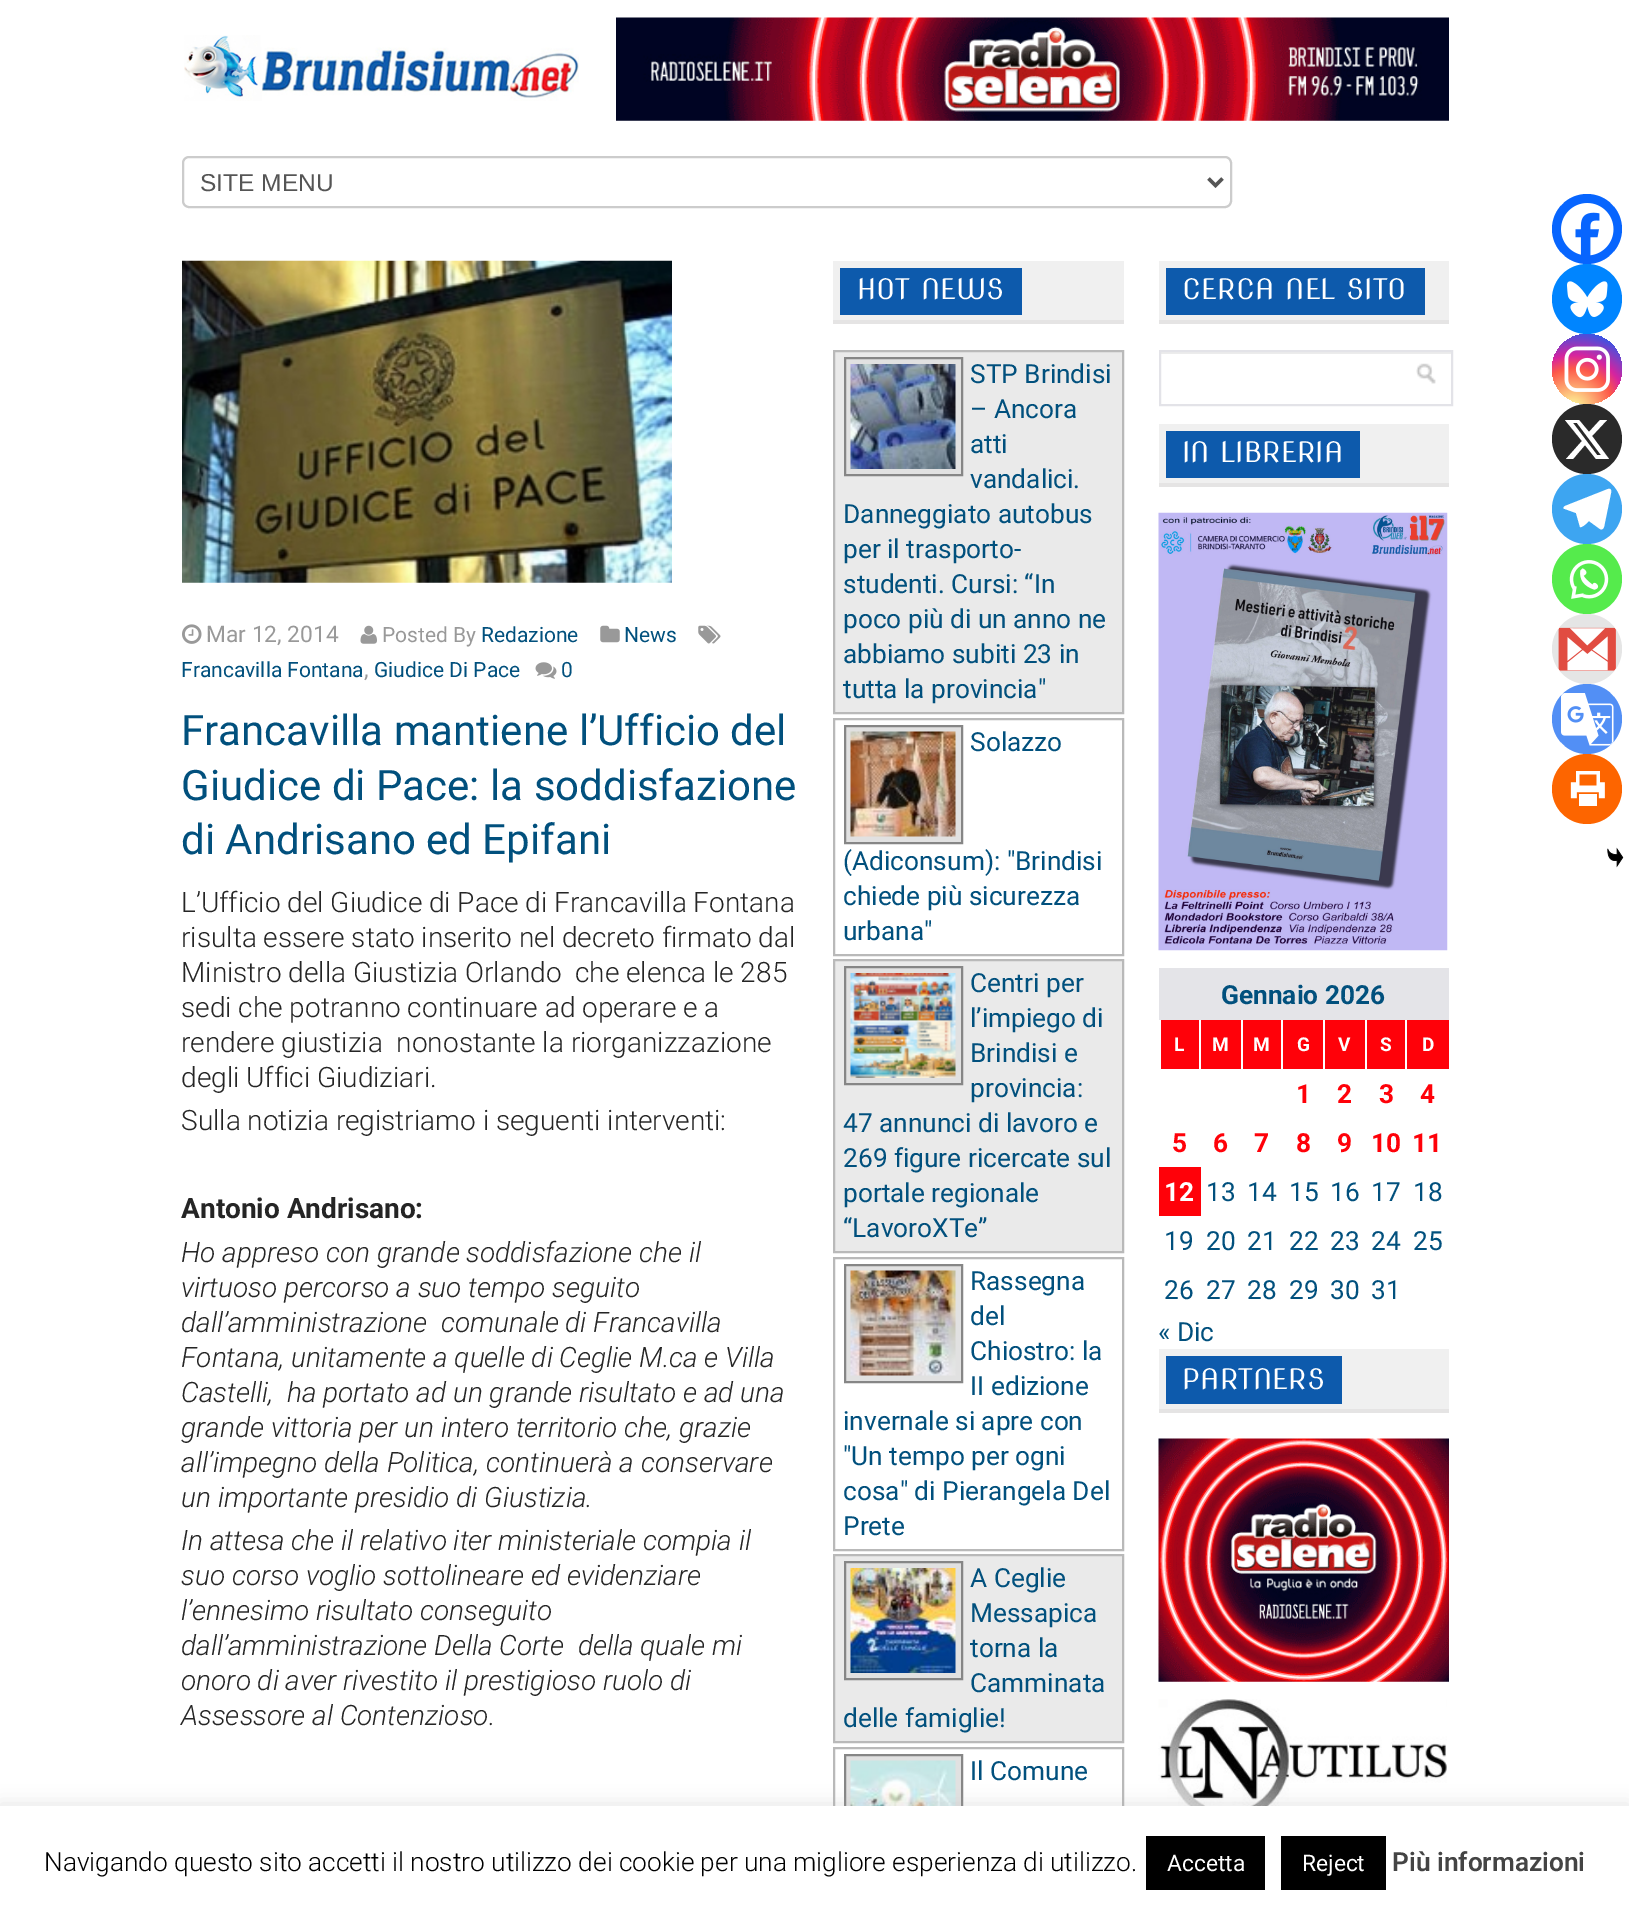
%!PS-Adobe-3.0
%%BoundingBox: 0 0 1629 1910
%%LanguageLevel: 3
%%Pages: 1
%%EndComments
%%BeginProlog
/setink { 3 { 255 div 3 1 roll } repeat setrgbcolor } def
/usefont { [ exch dup neg 0 0 3 -1 roll 0 0 ] selectfont } def
/drawtext { setink usefont moveto show } def
/fillbox { setink rectfill } def
/setalpha { dup .setfillconstantalpha .setstrokeconstantalpha } def
/disc { newpath 0 360 arc closepath } def
/rrect { 5 dict begin { /r /h /w /y /x } { exch def } forall
  x r add y moveto x w add y 2 copy h add r arct x w add y h add x 1 index r arct
  x y h add x y r arct x y 2 copy exch w add exch r arct closepath end } def
/softshadow { 12 dict begin { /a /b /q /h /w /y /x } { exch def } forall gsave /was 0 def
  9 -2 -9 { dup b mul 4 div /e exch def 1 sub .425 mul 2.718 exch exp 1 add a .99 .min exch div /now exch def
    1 1 now sub 1 was sub div sub setalpha /was now def
    w h .min e 2 mul add 0 gt { x e sub y e sub w e 2 mul add h e 2 mul add
      q e add b .6 mul add w h .min 2 div e add .min 0 .max rrect fill } if } for grestore end } def
/drawimage { 5 dict begin { /h /w /y /x /name } { exch def } forall
  gsave x y translate w h scale
  w h 8 [w 0 0 h 0 0] name (r) file false 3 colorimage grestore end } def
%%EndProlog
%%BeginSetup
<< /PageSize [1629 1910] /PageUsesTransparency true >> setpagedevice
%%EndSetup
%%Page: 1 1
0 .pushpdf14devicefilter
0 1910 translate 1 -1 scale
4 setmiterlimit
0 0 1629 1910 255 255 255 fillbox
(assets/img1.rgb) 184 35 395 66 drawimage
(assets/img2.rgb) 616 17 833 104 drawimage
204 204 204 setink
2 setlinewidth
183 157 1048 50 6 rrect stroke
85 85 85 setink
3.5 setlinewidth
1208.5 178.5 moveto 1215.5 185.5 lineto 1222.5 178.5 lineto stroke
(SITE MENU) 200 191 /LiberationSans-Regular 24.5 85 85 85 drawtext
(assets/img3.rgb) 182 260 490 323 drawimage
(assets/img4.rgb) 182 624 20 20 drawimage
(Mar 12, 2014) 206 642 /Roboto-Regular 22.75 153 153 153 drawtext
(assets/img5.rgb) 360 625 17 19 drawimage
(Posted By) 382 642 /Roboto-Regular 21 153 153 153 drawtext
(Redazione) 481 642 /Roboto-Regular 21 1 80 125 drawtext
(assets/img6.rgb) 600 625 20 18 drawimage
(News) 624 642 /Roboto-Regular 21 1 80 125 drawtext
(assets/img7.rgb) 698 625 23 19 drawimage
(Francavilla Fontana) 181 677 /Roboto-Regular 21 1 80 125 drawtext
(,) 364 677 /Roboto-Regular 22.75 153 153 153 drawtext
(Giudice Di Pace) 374 677 /Roboto-Regular 21 1 80 125 drawtext
(assets/img8.rgb) 535 662 22 17 drawimage
(0) 561 677 /Roboto-Regular 21 1 80 125 drawtext
(Francavilla mantiene l’Ufficio del) 181 745 /Roboto-Regular 42 1 80 125 drawtext
(Giudice di Pace: la soddisfazione) 181 800 /Roboto-Regular 42 1 80 125 drawtext
(di Andrisano ed Epifani) 181 854 /Roboto-Regular 42 1 80 125 drawtext
7 101 254 setink
1587 229 35 disc fill
(assets/img9.rgb) 1561 203 53 53 drawimage
0 133 255 setink
1587 299 35 disc fill
(assets/img10.rgb) 1567 281 41 37 drawimage
gsave 1587 369 35 disc clip newpath 1573 409 translate 90 90 scale
<< /ShadingType 3 /ColorSpace /DeviceRGB /Coords [0 0 0 0 0 1] /Extend [true true] /Function << /FunctionType 3 /Domain [0 1] /Functions [<< /FunctionType 2 /Domain [0 1] /C0 [0.992 0.957 0.592] /C1 [0.992 0.957 0.592] /N 1 >> << /FunctionType 2 /Domain [0 1] /C0 [0.992 0.957 0.592] /C1 [0.992 0.349 0.286] /N 1 >> << /FunctionType 2 /Domain [0 1] /C0 [0.992 0.349 0.286] /C1 [0.839 0.141 0.624] /N 1 >> << /FunctionType 2 /Domain [0 1] /C0 [0.839 0.141 0.624] /C1 [0.157 0.353 0.922] /N 1 >> << /FunctionType 2 /Domain [0 1] /C0 [0.157 0.353 0.922] /C1 [0.157 0.353 0.922] /N 1 >>] /Bounds [0.05 0.45 0.6 0.9] /Encode [0 1 0 1 0 1 0 1 0 1] >> >> shfill grestore
(assets/img11.rgb) 1564 346 46 46 drawimage
42 42 42 setink
1587 439 35 disc fill
255 255 255 setink
1600 420 moveto 1607 420 lineto 1592 436 lineto 1609 459 lineto 1596 459 lineto 1585 445 lineto 1573 459 lineto 1566 459 lineto 1582 441 lineto 1565 420 lineto 1579 420 lineto 1589 432 lineto closepath 1597 455 moveto 1601 455 lineto 1577 423 lineto 1573 423 lineto closepath fill
61 165 241 setink
1587 509 35 disc fill
255 255 255 setink
1608 489 moveto 1565 506 lineto 1563 507 1563 509 1565 509 curveto 1576 513 lineto 1580 527 lineto 1582 528 1588 522 1589 521 curveto 1600 529 lineto 1602 530 1603 529 1604 527 curveto 1611 493 lineto 1612 490 1610 488 1608 489 curveto closepath fill
85 235 76 setink
1587 579 35 disc fill
(assets/img12.rgb) 1569 560 40 39 drawimage
229 229 229 setink
1587 649 35 disc fill
(assets/img13.rgb) 1558 627 58 44 drawimage
82 143 245 setink
1587 719 35 disc fill
(assets/img14.rgb) 1561 693 53 53 drawimage
253 101 0 setink
1587 789 35 disc fill
(assets/img15.rgb) 1570 771 35 35 drawimage
(assets/img16.rgb) 1607 847 17 21 drawimage
(L’Ufficio del Giudice di Pace di Francavilla Fontana) 181 912 /Roboto-Light 28 37 37 37 drawtext
(risulta essere stato inserito nel decreto firmato dal) 181 947 /Roboto-Light 28 37 37 37 drawtext
(Ministro della Giustizia Orlando  che elenca le 285) 181 982 /Roboto-Light 28 37 37 37 drawtext
(sedi che potranno continuare ad operare e a) 181 1017 /Roboto-Light 28 37 37 37 drawtext
(rendere giustizia  nonostante la riorganizzazione) 181 1052 /Roboto-Light 28 37 37 37 drawtext
(degli Uffici Giudiziari.) 181 1087 /Roboto-Light 28 37 37 37 drawtext
(Sulla notizia registriamo i seguenti interventi:) 181 1130 /Roboto-Light 28 37 37 37 drawtext
(Antonio Andrisano:) 181 1218 /Roboto-Bold 28 37 37 37 drawtext
(Ho appreso con grande soddisfazione che il) 181 1262 /Roboto-LightItalic 28 37 37 37 drawtext
(virtuoso percorso a suo tempo seguito) 181 1297 /Roboto-LightItalic 28 37 37 37 drawtext
(dall’amministrazione  comunale di Francavilla) 181 1332 /Roboto-LightItalic 28 37 37 37 drawtext
(Fontana, unitamente a quelle di Ceglie M.ca e Villa) 181 1367 /Roboto-LightItalic 28 37 37 37 drawtext
(Castelli,  ha portato ad un grande risultato e ad una) 181 1402 /Roboto-LightItalic 28 37 37 37 drawtext
(grande vittoria per un intero territorio che, grazie) 181 1437 /Roboto-LightItalic 28 37 37 37 drawtext
(all’impegno della Politica, continuerà a conservare) 181 1472 /Roboto-LightItalic 28 37 37 37 drawtext
(un importante presidio di Giustizia.) 181 1507 /Roboto-LightItalic 28 37 37 37 drawtext
(In attesa che il relativo iter ministeriale compia il) 181 1550 /Roboto-LightItalic 28 37 37 37 drawtext
(suo corso voglio sottolineare ed evidenziare) 181 1585 /Roboto-LightItalic 28 37 37 37 drawtext
(l’ennesimo risultato conseguito) 181 1620 /Roboto-LightItalic 28 37 37 37 drawtext
(dall’amministrazione Della Corte  della quale mi) 181 1655 /Roboto-LightItalic 28 37 37 37 drawtext
(onoro di aver rivestito il prestigioso ruolo di) 181 1690 /Roboto-LightItalic 28 37 37 37 drawtext
(Assessore al Contenzioso.) 181 1725 /Roboto-LightItalic 28 37 37 37 drawtext
833 261 291 59 240 240 240 fillbox
833 320 291 4 229 228 228 fillbox
840 268 182 47 13 90 172 fillbox
(HOT NEWS) 857 299 /NovaSlim-Regular 28 255 255 255 drawtext
234 234 234 setink
834 351 moveto 1123 351 lineto 1123 713 lineto 834 713 lineto closepath gsave fill grestore
185 185 185 setink
2 setlinewidth
stroke
225 225 225 setink
845 358 moveto 962 358 lineto 962 475 lineto 845 475 lineto closepath gsave fill grestore
134 134 134 setink
stroke
(assets/img17.rgb) 850 364 106 105 drawimage
(STP Brindisi) 970 383 /Roboto-Regular 26.25 1 80 125 drawtext
(– Ancora) 970 418 /Roboto-Regular 26.25 1 80 125 drawtext
(atti) 970 453 /Roboto-Regular 26.25 1 80 125 drawtext
(vandalici.) 970 488 /Roboto-Regular 26.25 1 80 125 drawtext
(Danneggiato autobus) 843 523 /Roboto-Regular 26.25 1 80 125 drawtext
(per il trasporto-) 843 558 /Roboto-Regular 26.25 1 80 125 drawtext
(studenti. Cursi: “In) 843 593 /Roboto-Regular 26.25 1 80 125 drawtext
(poco più di un anno ne) 843 628 /Roboto-Regular 26.25 1 80 125 drawtext
(abbiamo subiti 23 in) 843 663 /Roboto-Regular 26.25 1 80 125 drawtext
(tutta la provincia") 843 698 /Roboto-Regular 26.25 1 80 125 drawtext
185 185 185 setink
834 719 289 236 rectstroke
225 225 225 setink
845 726 moveto 962 726 lineto 962 843 lineto 845 843 lineto closepath gsave fill grestore
134 134 134 setink
stroke
(assets/img18.rgb) 850 731 106 106 drawimage
(Solazzo) 970 751 /Roboto-Regular 26.25 1 80 125 drawtext
(\(Adiconsum\): "Brindisi) 843 870 /Roboto-Regular 26.25 1 80 125 drawtext
(chiede più sicurezza) 843 905 /Roboto-Regular 26.25 1 80 125 drawtext
(urbana") 843 940 /Roboto-Regular 26.25 1 80 125 drawtext
234 234 234 setink
834 960 moveto 1123 960 lineto 1123 1252 lineto 834 1252 lineto closepath gsave fill grestore
185 185 185 setink
stroke
225 225 225 setink
845 967 moveto 962 967 lineto 962 1084 lineto 845 1084 lineto closepath gsave fill grestore
134 134 134 setink
stroke
(assets/img19.rgb) 850 973 106 105 drawimage
(Centri per) 970 992 /Roboto-Regular 26.25 1 80 125 drawtext
(l’impiego di) 970 1027 /Roboto-Regular 26.25 1 80 125 drawtext
(Brindisi e) 970 1062 /Roboto-Regular 26.25 1 80 125 drawtext
(provincia:) 970 1097 /Roboto-Regular 26.25 1 80 125 drawtext
(47 annunci di lavoro e) 843 1132 /Roboto-Regular 26.25 1 80 125 drawtext
(269 figure ricercate sul) 843 1167 /Roboto-Regular 26.25 1 80 125 drawtext
(portale regionale) 843 1202 /Roboto-Regular 26.25 1 80 125 drawtext
(“LavoroXTe”) 843 1237 /Roboto-Regular 26.25 1 80 125 drawtext
185 185 185 setink
834 1258 289 292 rectstroke
225 225 225 setink
845 1265 moveto 962 1265 lineto 962 1382 lineto 845 1382 lineto closepath gsave fill grestore
134 134 134 setink
stroke
(assets/img20.rgb) 850 1270 106 106 drawimage
(Rassegna) 970 1290 /Roboto-Regular 26.25 1 80 125 drawtext
(del) 970 1325 /Roboto-Regular 26.25 1 80 125 drawtext
(Chiostro: la) 970 1360 /Roboto-Regular 26.25 1 80 125 drawtext
(II edizione) 970 1395 /Roboto-Regular 26.25 1 80 125 drawtext
(invernale si apre con) 843 1430 /Roboto-Regular 26.25 1 80 125 drawtext
("Un tempo per ogni) 843 1465 /Roboto-Regular 26.25 1 80 125 drawtext
(cosa" di Pierangela Del) 843 1500 /Roboto-Regular 26.25 1 80 125 drawtext
(Prete) 843 1535 /Roboto-Regular 26.25 1 80 125 drawtext
234 234 234 setink
834 1555 moveto 1123 1555 lineto 1123 1742 lineto 834 1742 lineto closepath gsave fill grestore
185 185 185 setink
stroke
225 225 225 setink
845 1562 moveto 962 1562 lineto 962 1679 lineto 845 1679 lineto closepath gsave fill grestore
134 134 134 setink
stroke
(assets/img21.rgb) 850 1568 106 105 drawimage
(A Ceglie) 970 1587 /Roboto-Regular 26.25 1 80 125 drawtext
(Messapica) 970 1622 /Roboto-Regular 26.25 1 80 125 drawtext
(torna la) 970 1657 /Roboto-Regular 26.25 1 80 125 drawtext
(Camminata) 970 1692 /Roboto-Regular 26.25 1 80 125 drawtext
(delle famiglie!) 843 1727 /Roboto-Regular 26.25 1 80 125 drawtext
185 185 185 setink
834 1748 289 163 rectstroke
846 1756 115 50 225 225 225 fillbox
134 134 134 setink
845 1755 117 117 rectstroke
(assets/img22.rgb) 850 1760 106 46 drawimage
(Il Comune) 970 1780 /Roboto-Regular 26.25 1 80 125 drawtext
1159 261 290 59 240 240 240 fillbox
1159 320 290 4 229 228 228 fillbox
1166 268 259 47 13 90 172 fillbox
(CERCA NEL SITO) 1182 299 /NovaSlim-Regular 28 255 255 255 drawtext
(assets/img23.rgb) 1416 363 20 21 drawimage
1160 352 291 2 236 236 236 fillbox
227 227 232 setink
1160 351 292 54 rectstroke
1159 424 290 59 240 240 240 fillbox
1159 483 290 4 229 228 228 fillbox
1166 431 194 47 13 90 172 fillbox
(IN LIBRERIA) 1182 462 /NovaSlim-Regular 28 255 255 255 drawtext
(assets/img24.rgb) 1158 512 290 439 drawimage
1159 968 290 52 228 228 232 fillbox
(Gennaio 2026) 1221 1004 /Roboto-Bold 26.25 1 80 125 drawtext
1161 1020 38 49 255 1 9 fillbox
(L) 1174 1051 /Roboto-Bold 19 255 255 255 drawtext
1201 1020 40 49 255 1 9 fillbox
(M) 1212 1051 /Roboto-Bold 19 255 255 255 drawtext
1243 1020 38 49 255 1 9 fillbox
(M) 1253 1051 /Roboto-Bold 19 255 255 255 drawtext
1283 1020 40 49 255 1 9 fillbox
(G) 1297 1051 /Roboto-Bold 19 255 255 255 drawtext
1325 1020 40 49 255 1 9 fillbox
(V) 1338 1051 /Roboto-Bold 19 255 255 255 drawtext
1367 1020 38 49 255 1 9 fillbox
(S) 1380 1051 /Roboto-Bold 19 255 255 255 drawtext
1407 1020 42 49 255 1 9 fillbox
(D) 1422 1051 /Roboto-Bold 19 255 255 255 drawtext
(1) 1296 1103 /Roboto-Bold 26.25 255 1 9 drawtext
(2) 1337 1103 /Roboto-Bold 26.25 255 1 9 drawtext
(3) 1379 1103 /Roboto-Bold 26.25 255 1 9 drawtext
(4) 1420 1103 /Roboto-Bold 26.25 255 1 9 drawtext
(5) 1172 1152 /Roboto-Bold 26.25 255 1 9 drawtext
(6) 1213 1152 /Roboto-Bold 26.25 255 1 9 drawtext
(7) 1254 1152 /Roboto-Bold 26.25 255 1 9 drawtext
(8) 1296 1152 /Roboto-Bold 26.25 255 1 9 drawtext
(9) 1337 1152 /Roboto-Bold 26.25 255 1 9 drawtext
(10) 1371 1152 /Roboto-Bold 26.25 255 1 9 drawtext
(11) 1412 1152 /Roboto-Bold 26.25 255 1 9 drawtext
1159 1167 42 49 255 1 9 fillbox
(12) 1164 1201 /Roboto-Bold 26.25 255 255 255 drawtext
(13) 1206 1201 /Roboto-Regular 26.25 1 80 125 drawtext
(14) 1247 1201 /Roboto-Regular 26.25 1 80 125 drawtext
(15) 1289 1201 /Roboto-Regular 26.25 1 80 125 drawtext
(16) 1330 1201 /Roboto-Regular 26.25 1 80 125 drawtext
(17) 1371 1201 /Roboto-Regular 26.25 1 80 125 drawtext
(18) 1413 1201 /Roboto-Regular 26.25 1 80 125 drawtext
(19) 1164 1250 /Roboto-Regular 26.25 1 80 125 drawtext
(20) 1206 1250 /Roboto-Regular 26.25 1 80 125 drawtext
(21) 1247 1250 /Roboto-Regular 26.25 1 80 125 drawtext
(22) 1289 1250 /Roboto-Regular 26.25 1 80 125 drawtext
(23) 1330 1250 /Roboto-Regular 26.25 1 80 125 drawtext
(24) 1371 1250 /Roboto-Regular 26.25 1 80 125 drawtext
(25) 1413 1250 /Roboto-Regular 26.25 1 80 125 drawtext
(26) 1164 1299 /Roboto-Regular 26.25 1 80 125 drawtext
(27) 1206 1299 /Roboto-Regular 26.25 1 80 125 drawtext
(28) 1247 1299 /Roboto-Regular 26.25 1 80 125 drawtext
(29) 1289 1299 /Roboto-Regular 26.25 1 80 125 drawtext
(30) 1330 1299 /Roboto-Regular 26.25 1 80 125 drawtext
(31) 1371 1299 /Roboto-Regular 26.25 1 80 125 drawtext
(« Dic) 1158 1341 /Roboto-Regular 26.25 1 80 125 drawtext
1159 1349 290 60 240 240 240 fillbox
1159 1409 290 4 229 228 228 fillbox
1166 1356 176 48 13 90 172 fillbox
(PARTNERS) 1182 1389 /NovaSlim-Regular 28 255 255 255 drawtext
(assets/img25.rgb) 1158 1438 291 244 drawimage
(assets/img26.rgb) 1158 1699 289 107 drawimage
172 171 171 setink
0 1804 1629 105 0 9 0.3 softshadow
0 1806 1629 104 255 255 255 fillbox
(Navigando questo sito accetti il nostro utilizzo dei cookie per una migliore esperienza di utilizzo.) 44 1871 /Roboto-Light 26.25 0 0 0 drawtext
1146 1836 119 54 0 0 0 fillbox
(Accetta) 1167 1871 /Roboto-Regular 22.75 255 255 255 drawtext
1281 1836 105 54 0 0 0 fillbox
(Reject) 1302 1871 /Roboto-Regular 22.75 255 255 255 drawtext
(Più informazioni) 1392 1871 /Roboto-SemiBold 26.25 68 68 68 drawtext
.poppdf14devicefilter showpage
%%EOF
